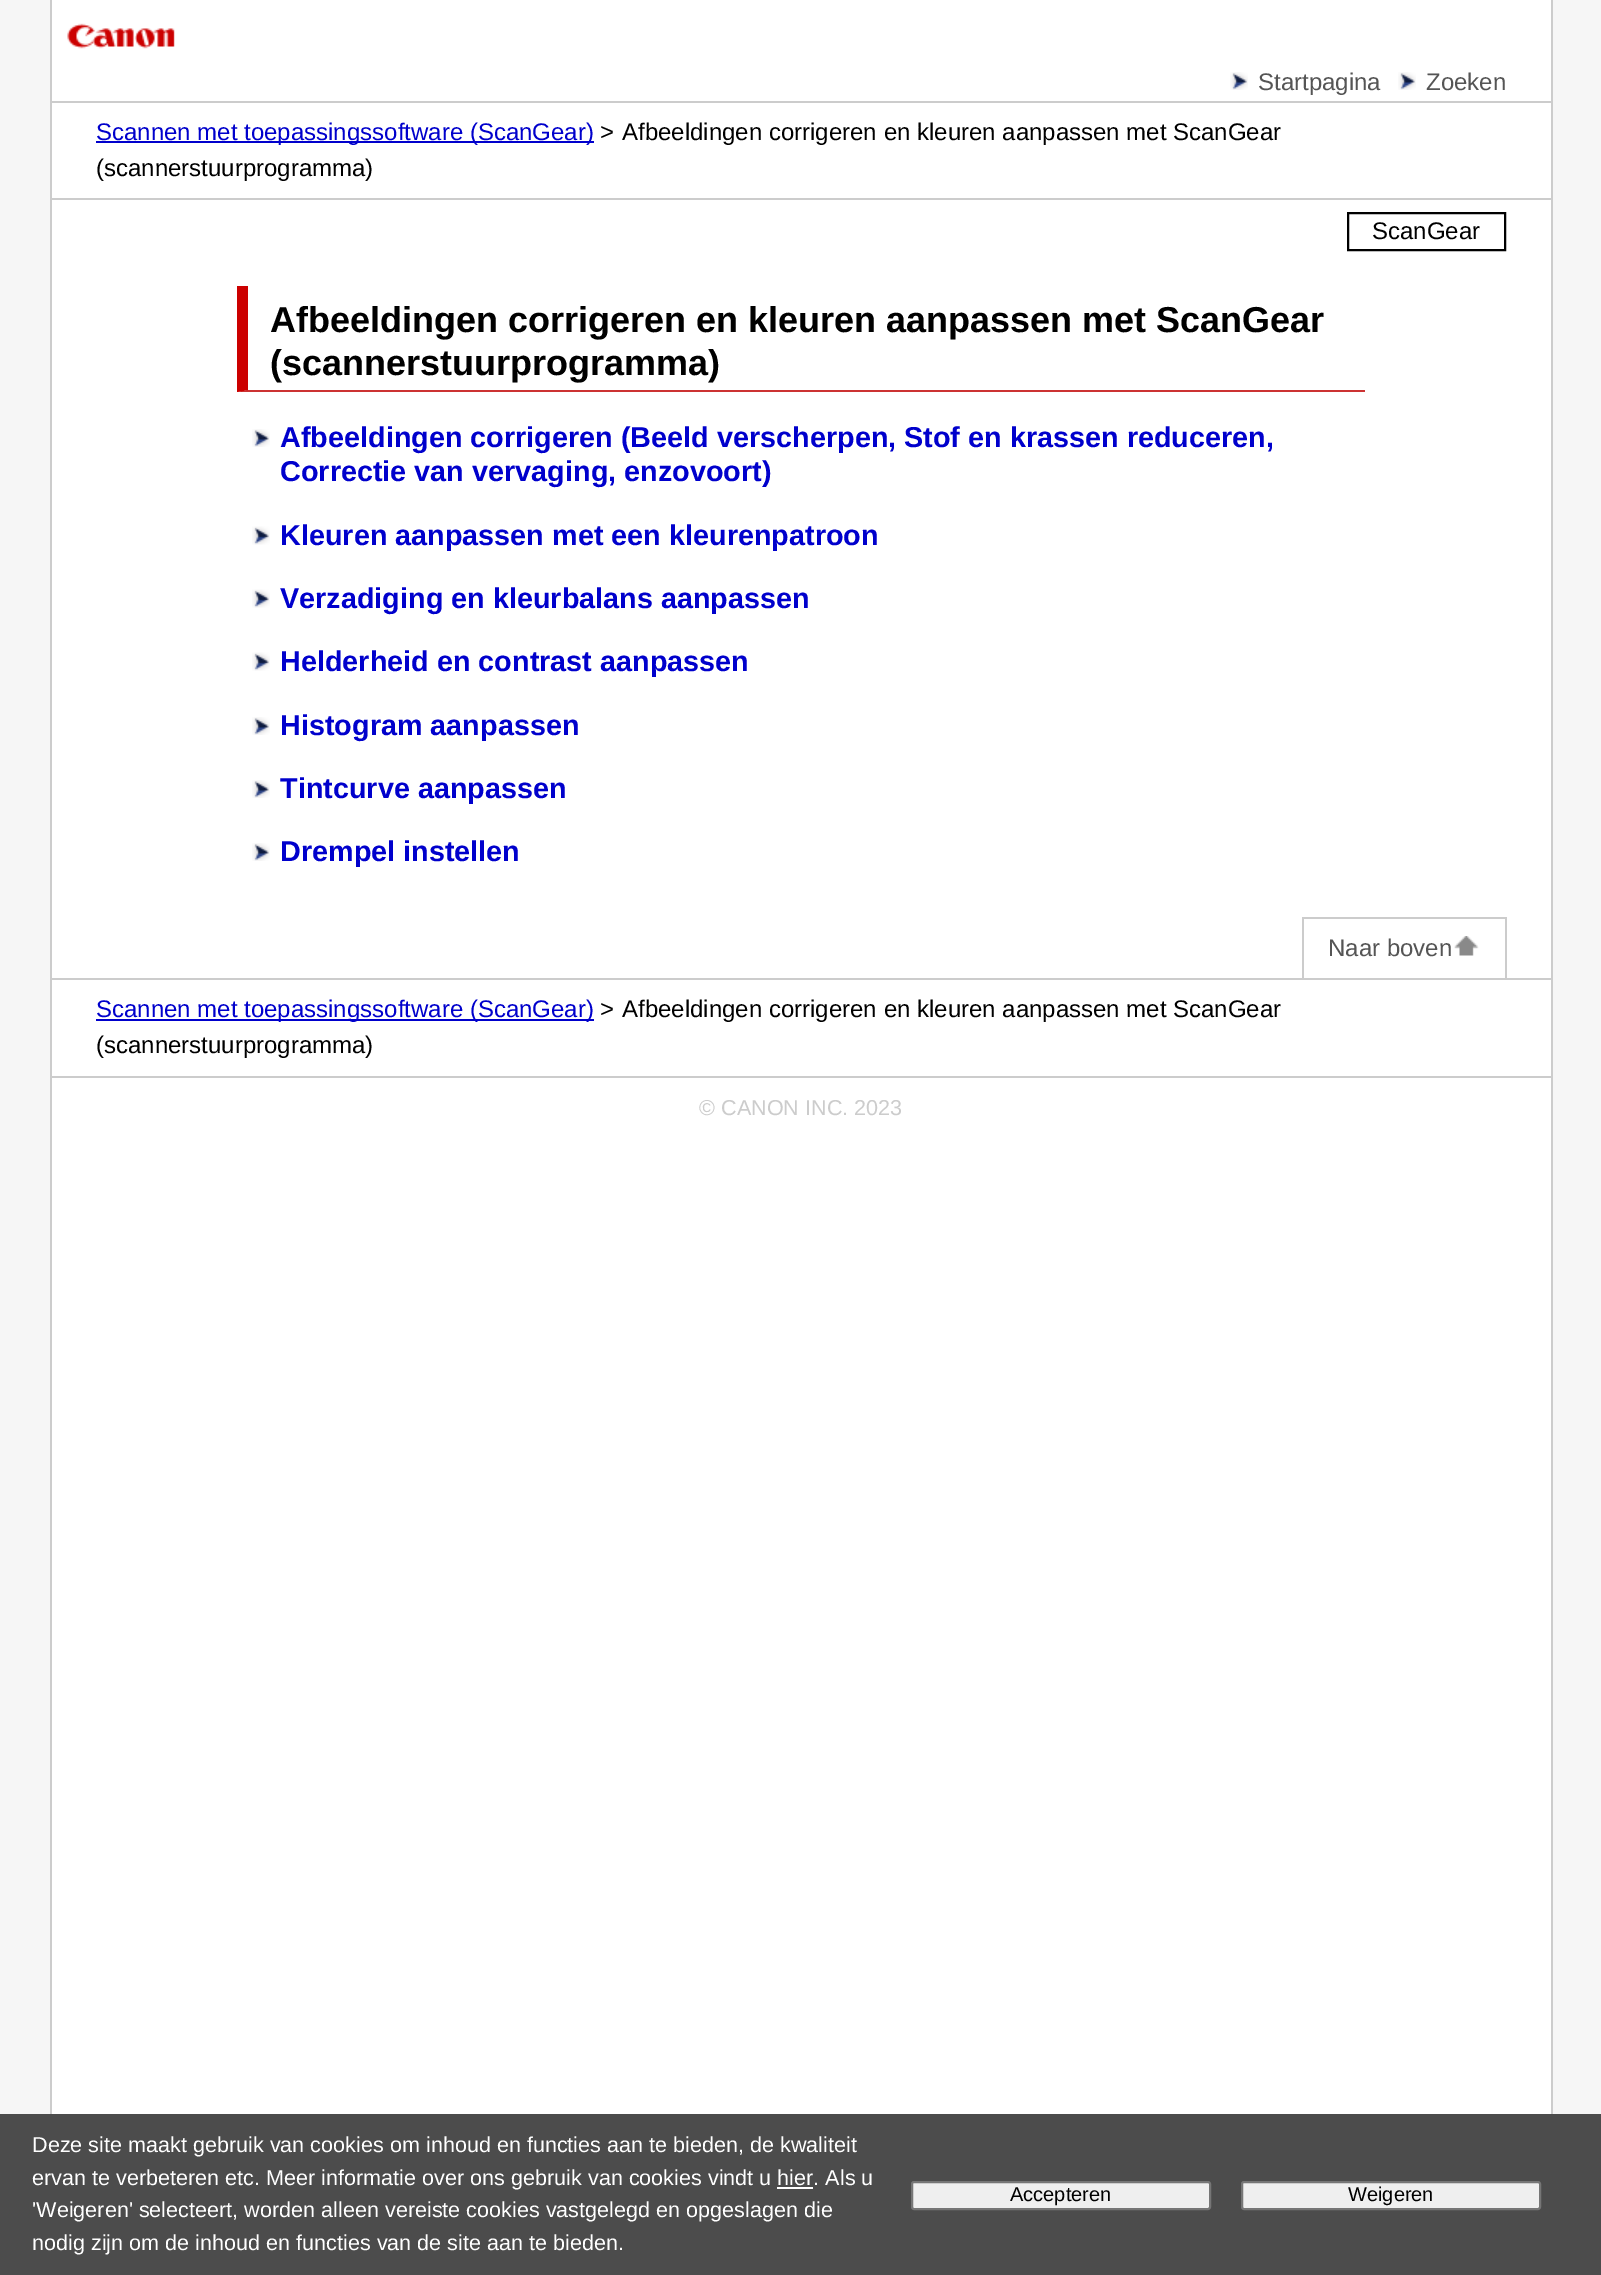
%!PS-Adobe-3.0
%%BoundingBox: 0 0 1601 2275
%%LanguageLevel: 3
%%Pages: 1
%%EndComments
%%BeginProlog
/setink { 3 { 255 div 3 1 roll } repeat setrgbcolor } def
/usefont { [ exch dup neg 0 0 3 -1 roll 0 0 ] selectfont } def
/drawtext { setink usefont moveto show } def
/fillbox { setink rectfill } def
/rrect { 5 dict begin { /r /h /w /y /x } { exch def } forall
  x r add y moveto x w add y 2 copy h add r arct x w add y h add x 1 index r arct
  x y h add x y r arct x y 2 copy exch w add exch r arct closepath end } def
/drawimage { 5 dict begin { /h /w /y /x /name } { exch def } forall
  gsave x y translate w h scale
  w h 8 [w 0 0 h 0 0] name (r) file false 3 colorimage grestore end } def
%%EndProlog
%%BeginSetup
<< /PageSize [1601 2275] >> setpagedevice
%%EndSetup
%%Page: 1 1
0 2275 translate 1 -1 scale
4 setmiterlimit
0 0 1601 2275 246 246 246 fillbox
52 0 1499 2114 255 255 255 fillbox
1551 0 2 2114 204 204 204 fillbox
50 0 2 2114 204 204 204 fillbox
(assets/img1.rgb) 67 23 108 26 drawimage
51 198 1500 2 204 204 204 fillbox
(assets/img2.rgb) 1230 72 18 18 drawimage
(Startpagina) 1258 90 /LiberationSans-Regular 24 85 85 85 drawtext
(assets/img3.rgb) 1398 72 18 18 drawimage
(Zoeken) 1426 90 /LiberationSans-Regular 24 85 85 85 drawtext
51 101 1500 2 204 204 204 fillbox
96 141 498 2 0 0 204 fillbox
(Scannen met toepassingssoftware \(ScanGear\)) 96 140 /LiberationSans-Regular 24 0 0 204 drawtext
(>) 600 140 /LiberationSans-Regular 24 0 0 0 drawtext
(Afbeeldingen corrigeren en kleuren aanpassen met ScanGear) 622 140 /LiberationSans-Regular 24 0 0 0 drawtext
(\(scannerstuurprogramma\)) 96 176 /LiberationSans-Regular 24 0 0 0 drawtext
2 setlinewidth
1348 213 157 37 rectstroke
(ScanGear) 1372 239 /LiberationSans-Regular 24 0 0 0 drawtext
204 51 51 setink
1365 392 moveto 237 392 lineto 248 390 lineto 1365 390 lineto closepath fill
204 0 0 setink
237 392 moveto 237 286 lineto 248 286 lineto 248 390 lineto closepath fill
(Afbeeldingen corrigeren en kleuren aanpassen met ScanGear) 270 332 /LiberationSans-Bold 36 0 0 0 drawtext
(\(scannerstuurprogramma\)) 270 375 /LiberationSans-Bold 36 0 0 0 drawtext
(assets/img3.rgb) 252 429 18 18 drawimage
(Afbeeldingen corrigeren \(Beeld verscherpen, Stof en krassen reduceren,) 280 447 /LiberationSans-Bold 28.8 0 0 204 drawtext
(Correctie van vervaging, enzovoort\)) 280 481 /LiberationSans-Bold 28.8 0 0 204 drawtext
(assets/img4.rgb) 252 526 18 19 drawimage
(Kleuren aanpassen met een kleurenpatroon) 280 545 /LiberationSans-Bold 28.8 0 0 204 drawtext
(assets/img4.rgb) 252 589 18 19 drawimage
(Verzadiging en kleurbalans aanpassen) 280 608 /LiberationSans-Bold 28.8 0 0 204 drawtext
(assets/img4.rgb) 252 652 18 19 drawimage
(Helderheid en contrast aanpassen) 280 671 /LiberationSans-Bold 28.8 0 0 204 drawtext
(assets/img3.rgb) 252 717 18 18 drawimage
(Histogram aanpassen) 280 735 /LiberationSans-Bold 28.8 0 0 204 drawtext
(assets/img3.rgb) 252 780 18 18 drawimage
(Tintcurve aanpassen) 280 798 /LiberationSans-Bold 28.8 0 0 204 drawtext
(assets/img3.rgb) 252 843 18 18 drawimage
(Drempel instellen) 280 861 /LiberationSans-Bold 28.8 0 0 204 drawtext
51 1076 1500 2 204 204 204 fillbox
1302 917 204 2 204 204 204 fillbox
1505 917 2 61 204 204 204 fillbox
1302 917 2 61 204 204 204 fillbox
(Naar boven) 1328 956 /LiberationSans-Regular 24 85 85 85 drawtext
(assets/img5.rgb) 1454 936 25 20 drawimage
51 978 1500 2 204 204 204 fillbox
96 1019 498 2 0 0 204 fillbox
(Scannen met toepassingssoftware \(ScanGear\)) 96 1017 /LiberationSans-Regular 24 0 0 204 drawtext
(>) 600 1017 /LiberationSans-Regular 24 0 0 0 drawtext
(Afbeeldingen corrigeren en kleuren aanpassen met ScanGear) 622 1017 /LiberationSans-Regular 24 0 0 0 drawtext
(\(scannerstuurprogramma\)) 96 1053 /LiberationSans-Regular 24 0 0 0 drawtext
(© CANON INC. 2023) 699 1115 /LiberationSans-Regular 21.6 204 204 204 drawtext
0 2114 1601 161 76 76 76 fillbox
(Deze site maakt gebruik van cookies om inhoud en functies aan te bieden, de kwaliteit) 32 2152 /LiberationSans-Regular 21.6 255 255 255 drawtext
(ervan te verbeteren etc. Meer informatie over ons gebruik van cookies vindt u hier. Als u) 32 2185 /LiberationSans-Regular 21.6 255 255 255 drawtext
777 2187 36 2 255 255 255 fillbox
('Weigeren' selecteert, worden alleen vereiste cookies vastgelegd en opgeslagen die) 32 2217 /LiberationSans-Regular 21.6 255 255 255 drawtext
(nodig zijn om de inhoud en functies van de site aan te bieden.) 32 2250 /LiberationSans-Regular 21.6 255 255 255 drawtext
239 239 239 setink
912 2182 298 27 2 rrect gsave fill grestore
118 118 118 setink
stroke
(Accepteren) 1010 2201 /LiberationSans-Regular 20 0 0 0 drawtext
239 239 239 setink
1242 2182 298 27 2 rrect gsave fill grestore
118 118 118 setink
stroke
(Weigeren) 1348 2201 /LiberationSans-Regular 20 0 0 0 drawtext
showpage
%%EOF
